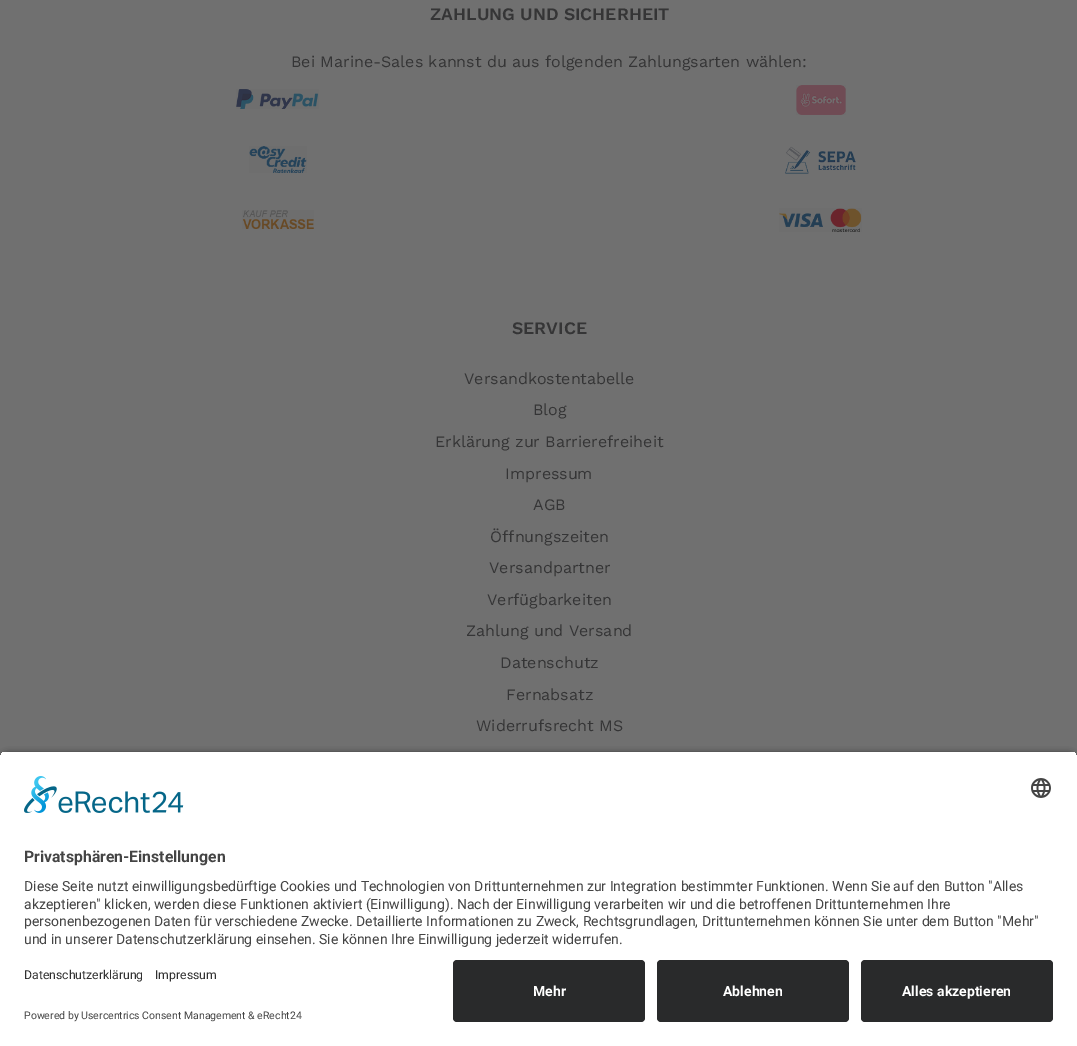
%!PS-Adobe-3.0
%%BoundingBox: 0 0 1077 1046
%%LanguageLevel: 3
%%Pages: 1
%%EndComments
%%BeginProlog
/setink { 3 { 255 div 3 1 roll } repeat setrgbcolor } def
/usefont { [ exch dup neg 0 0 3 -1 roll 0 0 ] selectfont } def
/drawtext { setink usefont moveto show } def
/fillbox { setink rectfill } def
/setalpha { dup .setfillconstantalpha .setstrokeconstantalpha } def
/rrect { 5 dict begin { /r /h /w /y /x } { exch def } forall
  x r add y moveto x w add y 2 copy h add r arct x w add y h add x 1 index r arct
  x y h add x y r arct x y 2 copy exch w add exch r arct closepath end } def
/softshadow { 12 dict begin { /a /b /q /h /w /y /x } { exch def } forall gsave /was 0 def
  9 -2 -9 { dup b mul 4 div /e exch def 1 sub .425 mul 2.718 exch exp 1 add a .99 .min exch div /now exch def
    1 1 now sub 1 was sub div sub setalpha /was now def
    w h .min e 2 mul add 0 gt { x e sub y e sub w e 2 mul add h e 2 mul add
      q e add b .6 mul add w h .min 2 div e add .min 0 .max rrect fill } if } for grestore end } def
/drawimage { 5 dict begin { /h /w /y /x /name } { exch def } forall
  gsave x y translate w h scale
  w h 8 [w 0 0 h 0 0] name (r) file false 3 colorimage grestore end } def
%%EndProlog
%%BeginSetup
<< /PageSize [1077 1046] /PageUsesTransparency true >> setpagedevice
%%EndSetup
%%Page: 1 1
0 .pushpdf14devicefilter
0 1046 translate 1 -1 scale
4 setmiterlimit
0 0 1077 1046 112 112 112 fillbox
(ZAHLUNG UND SICHERHEIT) 430 20 /WorkSans-SemiBold 17.6 53 53 54 drawtext
(Bei Marine-Sales kannst du aus folgenden Zahlungsarten wählen:) 291 67 /WorkSans-Regular 16 53 53 54 drawtext
(assets/img1.rgb) 236 89 83 20 drawimage
(assets/img2.rgb) 796 85 50 30 drawimage
(assets/img3.rgb) 249 146 58 27 drawimage
(assets/img4.rgb) 776 145 90 30 drawimage
(assets/img5.rgb) 242 210 72 19 drawimage
(assets/img6.rgb) 779 208 83 24 drawimage
(SERVICE) 512 334 /WorkSans-SemiBold 17.6 53 53 54 drawtext
(Versandkostentabelle) 464 384 /WorkSans-Regular 16 53 53 54 drawtext
(Blog) 533 415 /WorkSans-Regular 16 53 53 54 drawtext
(Erklärung zur Barrierefreiheit) 435 447 /WorkSans-Regular 16 53 53 54 drawtext
(Impressum) 505 479 /WorkSans-Regular 16 53 53 54 drawtext
(AGB) 533 510 /WorkSans-Regular 16 53 53 54 drawtext
(Öffnungszeiten) 490 542 /WorkSans-Regular 16 53 53 54 drawtext
(Versandpartner) 489 573 /WorkSans-Regular 16 53 53 54 drawtext
(Verfügbarkeiten) 487 605 /WorkSans-Regular 16 53 53 54 drawtext
(Zahlung und Versand) 466 636 /WorkSans-Regular 16 53 53 54 drawtext
(Datenschutz) 500 668 /WorkSans-Regular 16 53 53 54 drawtext
(Fernabsatz) 506 700 /WorkSans-Regular 16 53 53 54 drawtext
(Widerrufsrecht MS) 476 731 /WorkSans-Regular 16 53 53 54 drawtext
0 0 0 setink
0 754 1077 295 8 3.5 0.8 softshadow
gsave
8 751 moveto 1069 751 lineto 1073.5 751 1077 754.5 1077 759 curveto 1077 952 lineto 0 952 lineto 0 759 lineto 0 754.5 3.5 751 8 751 curveto closepath clip newpath
0 752 1077 200 255 255 255 fillbox
grestore
(assets/img7.rgb) 24 776 160 37 drawimage
(assets/img8.rgb) 1031 778 20 20 drawimage
(Privatsphären-Einstellungen) 24 862 /Roboto-Bold 15.75 68 68 68 drawtext
(Diese Seite nutzt einwilligungsbedürftige Cookies und Technologien von Drittunternehmen zur Integration bestimmter Funktionen. Wenn Sie auf den Button "Alles) 24 891 /Roboto-Regular 14 68 68 68 drawtext
(akzeptieren" klicken, werden diese Funktionen aktiviert \(Einwilligung\). Nach der Einwilligung verarbeiten wir und die betroffenen Drittunternehmen Ihre) 24 909 /Roboto-Regular 14 68 68 68 drawtext
(personenbezogenen Daten für verschiedene Zwecke. Detaillierte Informationen zu Zweck, Rechtsgrundlagen, Drittunternehmen können Sie unter dem Button "Mehr") 24 926 /Roboto-Regular 14 68 68 68 drawtext
(und in unserer Datenschutzerklärung einsehen. Sie können Ihre Einwilligung jederzeit widerrufen.) 24 944 /Roboto-Regular 14 68 68 68 drawtext
0 952 1077 94 255 255 255 fillbox
(Datenschutzerklärung) 24 979 /Roboto-Regular 12.25 48 48 48 drawtext
(Impressum) 155 979 /Roboto-Regular 12.25 48 48 48 drawtext
(Powered by Usercentrics Consent Management & eRecht24) 24 1019 /Roboto-Regular 10.5 68 68 68 drawtext
41 42 43 setink
453 960 192 62 4 rrect fill
(Mehr) 533 996 /Roboto-Bold 14 255 255 255 drawtext
41 42 43 setink
657 960 192 62 4 rrect fill
(Ablehnen) 723 996 /Roboto-Bold 14 255 255 255 drawtext
41 42 43 setink
861 960 192 62 4 rrect fill
(Alles akzeptieren) 902 996 /Roboto-Bold 14 255 255 255 drawtext
.poppdf14devicefilter showpage
%%EOF
